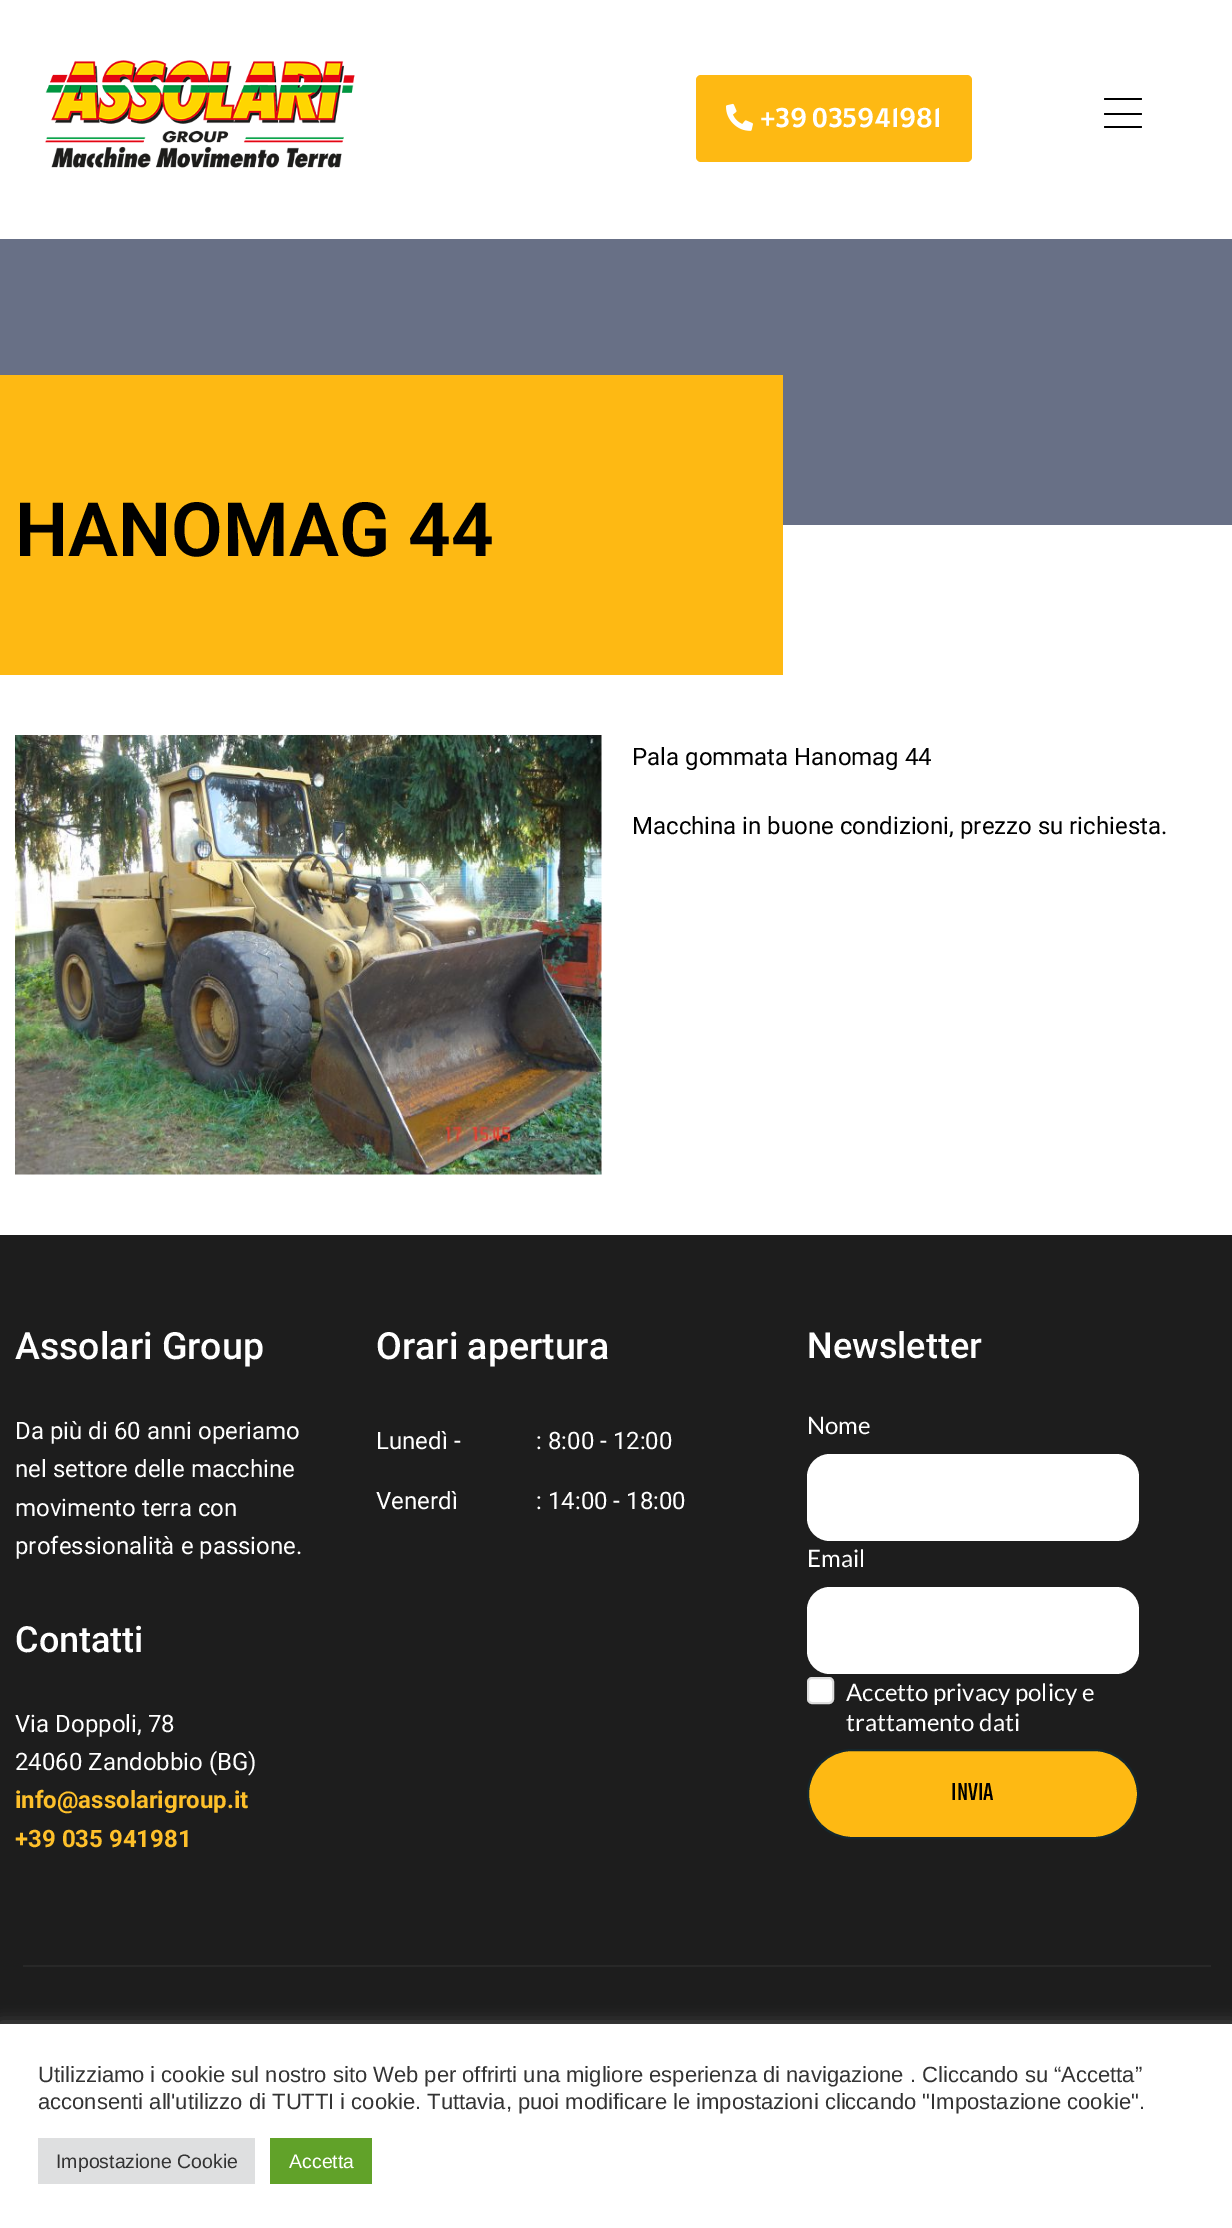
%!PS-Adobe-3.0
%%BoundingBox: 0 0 1232 2228
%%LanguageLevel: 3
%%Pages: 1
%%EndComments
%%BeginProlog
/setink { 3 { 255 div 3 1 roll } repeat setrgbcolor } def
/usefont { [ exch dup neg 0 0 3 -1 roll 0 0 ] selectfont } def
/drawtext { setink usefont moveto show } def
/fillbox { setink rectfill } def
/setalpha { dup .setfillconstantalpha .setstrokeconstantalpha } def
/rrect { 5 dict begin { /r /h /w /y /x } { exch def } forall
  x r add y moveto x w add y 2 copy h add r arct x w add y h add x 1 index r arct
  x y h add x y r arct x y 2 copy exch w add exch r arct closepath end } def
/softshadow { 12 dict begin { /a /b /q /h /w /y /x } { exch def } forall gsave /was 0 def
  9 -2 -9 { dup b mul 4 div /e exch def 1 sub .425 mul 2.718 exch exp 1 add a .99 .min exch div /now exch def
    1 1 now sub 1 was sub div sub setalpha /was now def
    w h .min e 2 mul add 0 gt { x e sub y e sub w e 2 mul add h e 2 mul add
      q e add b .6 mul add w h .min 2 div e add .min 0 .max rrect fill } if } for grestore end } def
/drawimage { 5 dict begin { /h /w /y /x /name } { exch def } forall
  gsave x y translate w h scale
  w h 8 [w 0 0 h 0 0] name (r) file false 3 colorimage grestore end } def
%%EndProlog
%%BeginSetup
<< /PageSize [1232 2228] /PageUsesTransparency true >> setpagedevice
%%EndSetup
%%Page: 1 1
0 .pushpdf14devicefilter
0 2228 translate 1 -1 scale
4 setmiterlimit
0 0 1232 2228 255 255 255 fillbox
(assets/img1.rgb) 45 60 310 108 drawimage
254 185 19 setink
696 75 276 87 5 rrect fill
(assets/img2.rgb) 726 103 27 28 drawimage
(+39 035941981) 760 127 /Alatsi-Regular 27 255 255 255 drawtext
0 0 0 setink
1104 113 38 2 1 rrect fill
1104 98 38 2 1 rrect fill
1104 126 38 2 1 rrect fill
0 239 1232 286 104 112 134 fillbox
0 375 783 300 254 185 19 fillbox
(HANOMAG 44) 15 556 /Roboto-SemiBold 75 0 0 0 drawtext
(assets/img3.rgb) 15 735 587 440 drawimage
(Pala gommata Hanomag 44) 632 765 /Roboto-Regular 24 0 0 0 drawtext
(Macchina in buone condizioni, prezzo su richiesta.) 632 834 /Roboto-Regular 24 0 0 0 drawtext
0 1235 1232 789 29 29 29 fillbox
(Assolari Group) 15 1359 /Roboto-Medium 37.5 255 255 255 drawtext
(Da più di 60 anni operiamo) 15 1439 /Roboto-Regular 24 255 255 255 drawtext
(nel settore delle macchine) 15 1477 /Roboto-Regular 24 255 255 255 drawtext
(movimento terra con) 15 1516 /Roboto-Regular 24 255 255 255 drawtext
(professionalità e passione.) 15 1554 /Roboto-Regular 24 255 255 255 drawtext
(Contatti) 15 1652 /Roboto-Medium 36 255 255 255 drawtext
(Via Doppoli, 78) 15 1732 /Roboto-Regular 24 255 255 255 drawtext
(24060 Zandobbio \(BG\)) 15 1770 /Roboto-Regular 24 255 255 255 drawtext
(info@assolarigroup.it) 15 1808 /Roboto-Bold 24 254 192 42 drawtext
(+39 035 941981) 15 1847 /Roboto-Bold 24 254 192 42 drawtext
(Orari apertura) 376 1359 /Roboto-Medium 37.5 255 255 255 drawtext
(Lunedì -) 376 1449 /Roboto-Regular 24 255 255 255 drawtext
(Venerdì) 376 1509 /Roboto-Regular 24 255 255 255 drawtext
(: 8:00 - 12:00) 536 1449 /Roboto-Regular 24 255 255 255 drawtext
(: 14:00 - 18:00) 536 1509 /Roboto-Regular 24 255 255 255 drawtext
(Newsletter) 807 1358 /Roboto-Medium 36 255 255 255 drawtext
(Nome) 807 1434 /Lato-Regular 24 255 255 255 drawtext
807 1454 332 87 23 rrect fill
(Email) 807 1567 /Lato-Regular 24 255 255 255 drawtext
807 1587 332 87 23 rrect fill
808 1678 25 25 4 rrect gsave fill grestore
221 221 221 setink
2 setlinewidth
stroke
(Accetto privacy policy e) 846 1701 /Lato-Regular 24 255 255 255 drawtext
(trattamento dati) 846 1731 /Lato-Regular 24 255 255 255 drawtext
254 185 19 setink
808 1750 330 88 44 rrect gsave fill grestore
20 39 46 setink
stroke
(INVIA) 951 1800 /Teko-Regular 27 0 0 0 drawtext
23 1965 1188 2 40 40 40 fillbox
172 171 171 setink
0 2022 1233 206 0 7.5 0.3 softshadow
0 2024 1232 204 255 255 255 fillbox
(Utilizziamo i cookie sul nostro sito Web per offrirti una migliore esperienza di navigazione . Cliccando su “Accetta”) 38 2082 /LiberationSans-Regular 22 51 51 51 drawtext
(acconsenti all'utilizzo di TUTTI i cookie. Tuttavia, puoi modificare le impostazioni cliccando "Impostazione cookie".) 38 2109 /LiberationSans-Regular 22 51 51 51 drawtext
38 2138 217 46 222 223 224 fillbox
(Impostazione Cookie) 56 2168 /LiberationSans-Regular 19.5 51 51 51 drawtext
270 2138 102 46 97 162 41 fillbox
(Accetta) 289 2168 /LiberationSans-Regular 19.5 255 255 255 drawtext
.poppdf14devicefilter showpage
%%EOF
